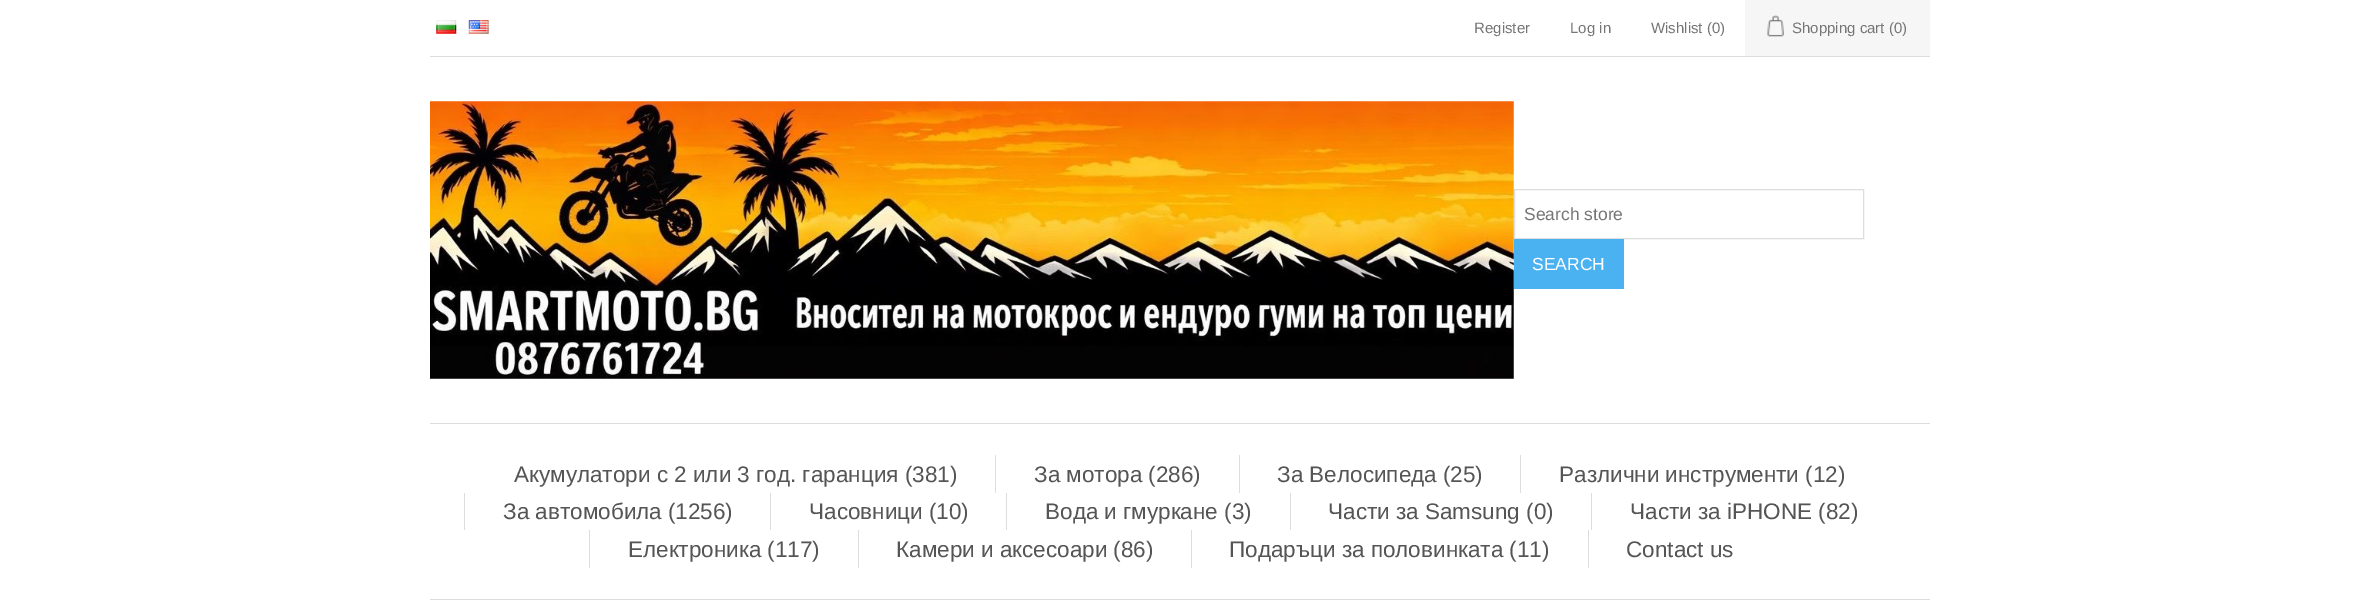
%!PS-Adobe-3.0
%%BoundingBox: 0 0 2360 613
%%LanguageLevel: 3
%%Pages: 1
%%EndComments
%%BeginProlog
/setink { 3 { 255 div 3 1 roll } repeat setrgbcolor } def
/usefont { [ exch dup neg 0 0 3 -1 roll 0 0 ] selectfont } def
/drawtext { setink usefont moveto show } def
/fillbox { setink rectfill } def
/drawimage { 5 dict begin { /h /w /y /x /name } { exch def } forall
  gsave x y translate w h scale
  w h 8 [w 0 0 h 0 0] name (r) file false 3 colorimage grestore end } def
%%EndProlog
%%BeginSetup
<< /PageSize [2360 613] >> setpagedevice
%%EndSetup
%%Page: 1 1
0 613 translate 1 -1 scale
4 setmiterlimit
0 0 2360 613 255 255 255 fillbox
430 56 1500 1 221 221 221 fillbox
(assets/img1.rgb) 436 20 21 14 drawimage
(assets/img2.rgb) 468 20 21 14 drawimage
(Register) 1474 33 /LiberationSans-Regular 15 117 117 117 drawtext
(Log in) 1570 33 /LiberationSans-Regular 15 117 117 117 drawtext
(Wishlist \(0\)) 1651 33 /LiberationSans-Regular 15 117 117 117 drawtext
1745 0 185 56 246 246 246 fillbox
(assets/img3.rgb) 1767 15 17 22 drawimage
(Shopping cart \(0\)) 1792 33 /LiberationSans-Regular 15 117 117 117 drawtext
(assets/img4.rgb) 430 101 1084 278 drawimage
221 221 221 setink
1514.5 189.5 349 49 rectstroke
(Search store) 1524 220 /LiberationSans-Regular 17.5 117 117 117 drawtext
1514 239 110 50 74 178 241 fillbox
(SEARCH) 1532 270 /LiberationSans-Regular 17.5 255 255 255 drawtext
430 423 1500 1 221 221 221 fillbox
430 599 1500 1 221 221 221 fillbox
(Акумулатори с 2 или 3 год. гаранция \(381\)) 514 482 /LiberationSans-Regular 22.5 85 85 85 drawtext
995 455 1 38 221 221 221 fillbox
(За мотора \(286\)) 1034 482 /LiberationSans-Regular 22.5 85 85 85 drawtext
1239 455 1 38 221 221 221 fillbox
(За Велосипеда \(25\)) 1277 482 /LiberationSans-Regular 22.5 85 85 85 drawtext
1520 455 1 38 221 221 221 fillbox
(Различни инструменти \(12\)) 1559 482 /LiberationSans-Regular 22.5 85 85 85 drawtext
464 493 1 37 221 221 221 fillbox
(За автомобила \(1256\)) 503 519 /LiberationSans-Regular 22.5 85 85 85 drawtext
770 493 1 37 221 221 221 fillbox
(Часовници \(10\)) 809 519 /LiberationSans-Regular 22.5 85 85 85 drawtext
1006 493 1 37 221 221 221 fillbox
(Вода и гмуркане \(3\)) 1045 519 /LiberationSans-Regular 22.5 85 85 85 drawtext
1290 493 1 37 221 221 221 fillbox
(Части за Samsung \(0\)) 1328 519 /LiberationSans-Regular 22.5 85 85 85 drawtext
1591 493 1 37 221 221 221 fillbox
(Части за iPHONE \(82\)) 1630 519 /LiberationSans-Regular 22.5 85 85 85 drawtext
589 530 1 38 221 221 221 fillbox
(Електроника \(117\)) 628 557 /LiberationSans-Regular 22.5 85 85 85 drawtext
858 530 1 38 221 221 221 fillbox
(Камери и аксесоари \(86\)) 896 557 /LiberationSans-Regular 22.5 85 85 85 drawtext
1191 530 1 38 221 221 221 fillbox
(Подаръци за половинката \(11\)) 1229 557 /LiberationSans-Regular 22.5 85 85 85 drawtext
1588 530 1 38 221 221 221 fillbox
(Contact us) 1626 557 /LiberationSans-Regular 22.5 85 85 85 drawtext
showpage
%%EOF
